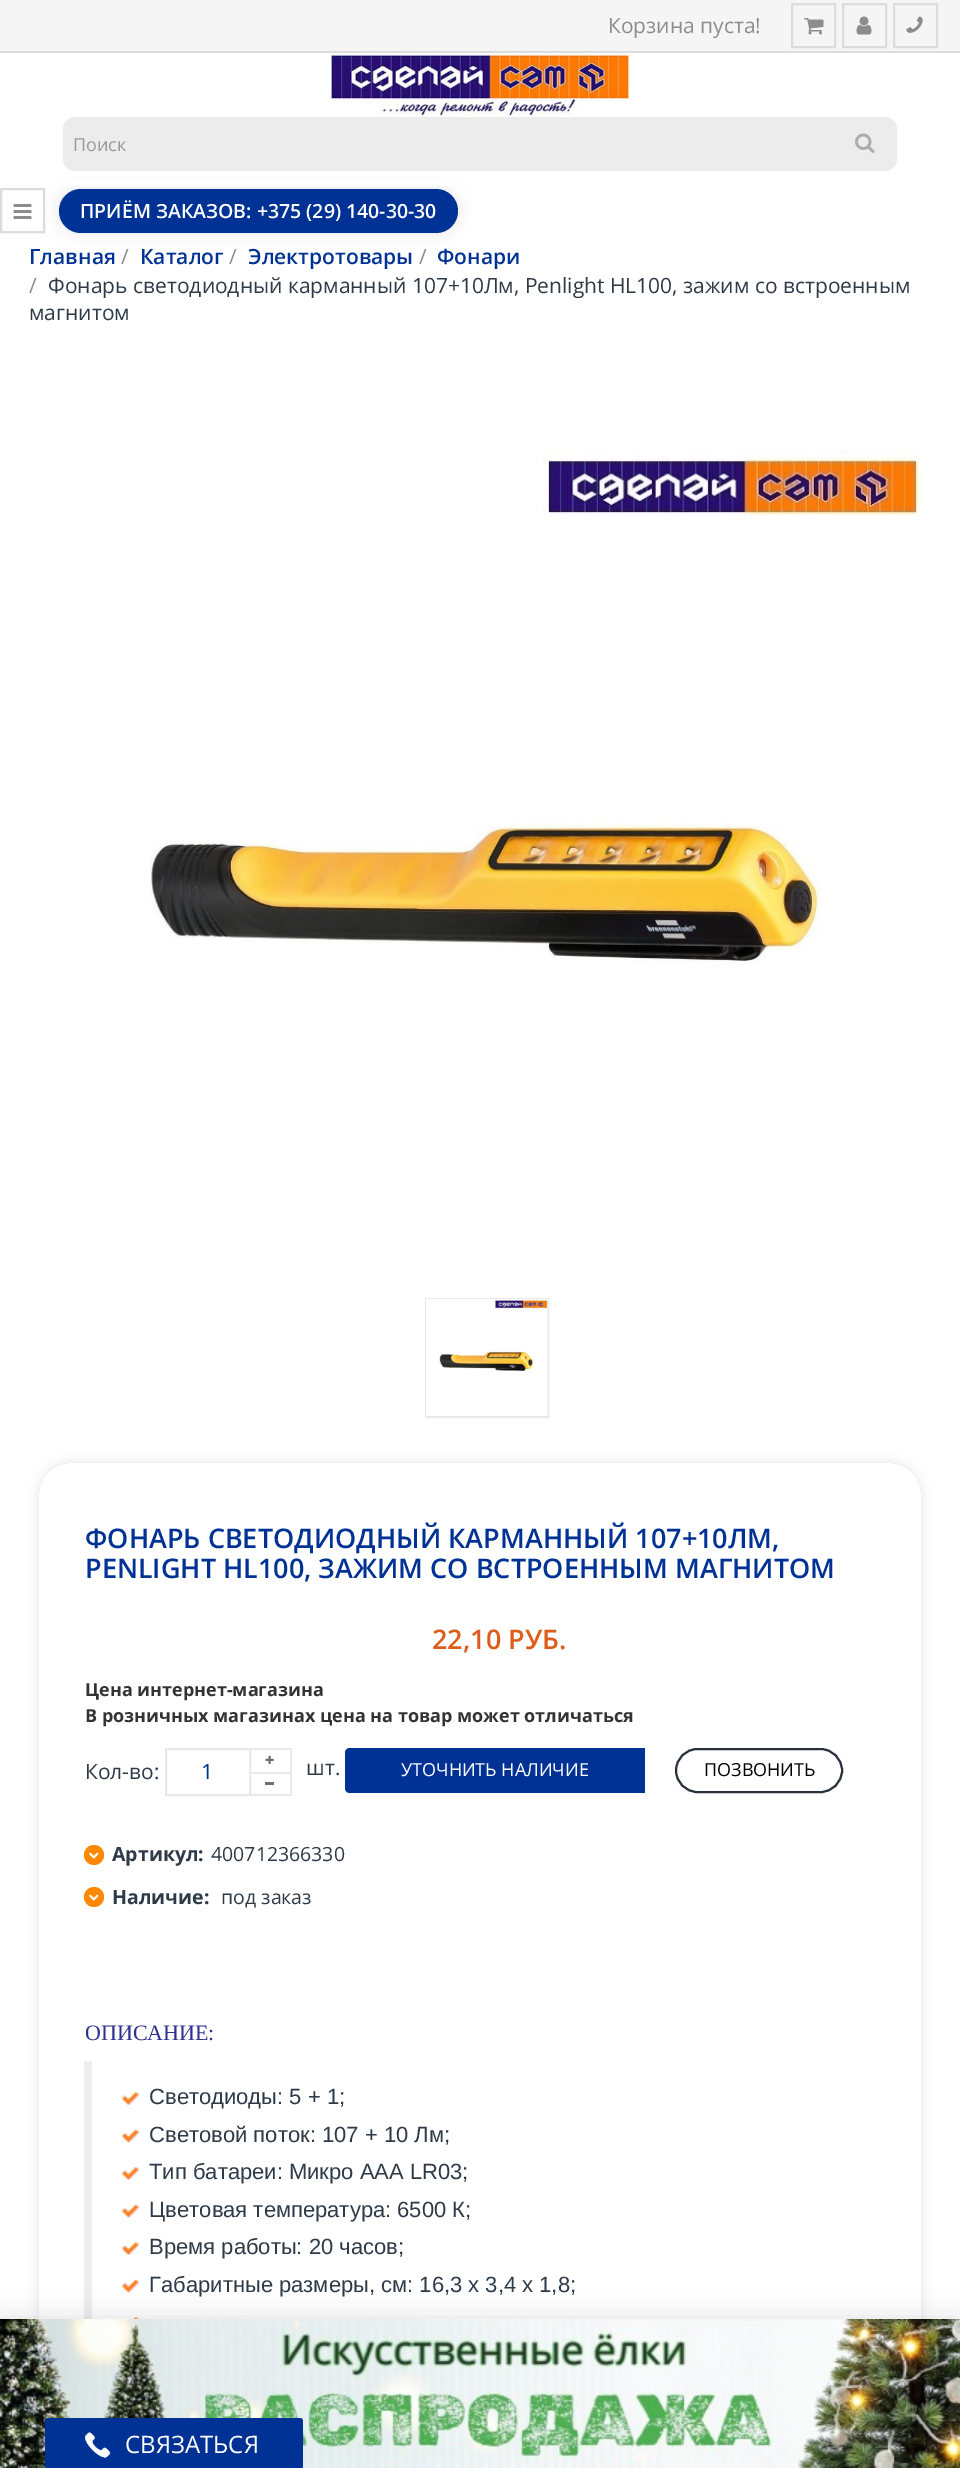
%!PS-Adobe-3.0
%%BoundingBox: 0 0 960 2468
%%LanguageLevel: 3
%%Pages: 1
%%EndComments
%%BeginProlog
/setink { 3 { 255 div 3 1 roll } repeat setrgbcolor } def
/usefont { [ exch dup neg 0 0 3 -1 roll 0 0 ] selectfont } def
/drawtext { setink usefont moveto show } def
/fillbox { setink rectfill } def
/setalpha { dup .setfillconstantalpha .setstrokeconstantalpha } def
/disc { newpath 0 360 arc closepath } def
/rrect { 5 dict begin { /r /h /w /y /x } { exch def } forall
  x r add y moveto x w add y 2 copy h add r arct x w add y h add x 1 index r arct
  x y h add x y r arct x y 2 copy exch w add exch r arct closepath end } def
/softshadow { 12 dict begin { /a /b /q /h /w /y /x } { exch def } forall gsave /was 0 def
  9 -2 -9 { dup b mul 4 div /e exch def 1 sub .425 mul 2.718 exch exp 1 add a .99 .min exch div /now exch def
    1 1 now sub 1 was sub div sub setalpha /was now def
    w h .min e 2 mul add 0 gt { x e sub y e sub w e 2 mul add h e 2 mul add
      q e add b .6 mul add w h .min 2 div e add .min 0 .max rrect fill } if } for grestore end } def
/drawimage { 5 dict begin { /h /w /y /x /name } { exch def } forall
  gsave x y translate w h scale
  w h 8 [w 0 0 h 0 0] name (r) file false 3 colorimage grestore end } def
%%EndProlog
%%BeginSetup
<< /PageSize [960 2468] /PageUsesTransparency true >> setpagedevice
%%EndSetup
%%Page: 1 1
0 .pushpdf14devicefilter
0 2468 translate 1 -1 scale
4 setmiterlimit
0 0 960 2468 255 255 255 fillbox
0 0 960 51 245 245 245 fillbox
0 51 960 2 220 220 220 fillbox
(Корзина пуста!) 608 33 /OpenSans-Regular 21 140 140 140 drawtext
220 220 220 setink
2 setlinewidth
792 4 43 43 rectstroke
(assets/img1.rgb) 804 18 20 17 drawimage
843 4 43 43 rectstroke
(assets/img2.rgb) 856 16 16 19 drawimage
894 4 43 43 rectstroke
(assets/img3.rgb) 906 16 17 17 drawimage
0 0 0 setink
59 189 399 44 22 7.5 0.1 softshadow
64 179 389 7 255 255 255 fillbox
(assets/img4.rgb) 330 54 300 63 drawimage
236 236 236 setink
63 117 834 54 12 rrect fill
(Поиск) 73 151 /OpenSans-Regular 18 153 153 153 drawtext
(assets/img5.rgb) 855 133 20 20 drawimage
220 220 220 setink
1 189 43 43 rectstroke
(assets/img6.rgb) 13 204 19 15 drawimage
0 50 149 setink
59 189 399 44 22 rrect fill
(ПРИЁМ ЗАКАЗОВ: +375 \(29\) 140-30-30) 80 218 /OpenSans-SemiBold 19.5 255 255 255 drawtext
(Главная) 29 264 /OpenSans-SemiBold 21 0 50 149 drawtext
(/) 121 264 /OpenSans-Regular 21 140 140 140 drawtext
(Каталог) 140 264 /OpenSans-SemiBold 21 0 50 149 drawtext
(/) 229 264 /OpenSans-Regular 21 140 140 140 drawtext
(Электротовары) 248 264 /OpenSans-SemiBold 21 0 50 149 drawtext
(/) 419 264 /OpenSans-Regular 21 140 140 140 drawtext
(Фонари) 437 264 /OpenSans-SemiBold 21 0 50 149 drawtext
(/) 29 293 /OpenSans-Regular 21 140 140 140 drawtext
(Фонарь светодиодный карманный 107+10Лм, Penlight HL100, зажим со встроенным) 48 293 /OpenSans-Regular 21 46 58 71 drawtext
(магнитом) 29 320 /OpenSans-Regular 21 46 58 71 drawtext
(assets/img7.rgb) 150 450 771 513 drawimage
233 233 233 setink
426 1299 122 118 rectstroke
(assets/img8.rgb) 426 1299 122 117 drawimage
gsave
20 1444 moveto 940 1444 lineto 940 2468 lineto 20 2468 lineto closepath 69 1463 moveto 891 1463 lineto 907.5 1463 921 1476.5 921 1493 curveto 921 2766 lineto 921 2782.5 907.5 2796 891 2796 curveto 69 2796 lineto 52.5 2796 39 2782.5 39 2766 curveto 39 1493 lineto 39 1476.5 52.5 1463 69 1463 curveto closepath eoclip newpath
0 0 0 setink
39 1463 882 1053 30 6 0.1 softshadow
grestore
(ФОНАРЬ СВЕТОДИОДНЫЙ КАРМАННЫЙ 107+10ЛМ,) 85 1548 /OpenSans-SemiBold 27 0 50 149 drawtext
(PENLIGHT HL100, ЗАЖИМ СО ВСТРОЕННЫМ МАГНИТОМ) 85 1578 /OpenSans-SemiBold 27 0 50 149 drawtext
(22,10 РУБ.) 432 1649 /OpenSans-SemiBold 27 221 92 27 drawtext
(Цена интернет-магазина) 85 1696 /OpenSans-Bold 18 51 51 51 drawtext
(В розничных магазинах цена на товар может отличаться) 85 1722 /OpenSans-Bold 18 51 51 51 drawtext
(Кол-во:) 85 1779 /OpenSans-Regular 21 46 58 71 drawtext
233 233 233 setink
166 1749 84 46 rectstroke
(1) 201 1779 /OpenSans-Regular 21 0 50 149 drawtext
251 1748 40 2 233 233 233 fillbox
290 1748 2 24 233 233 233 fillbox
(assets/img9.rgb) 265 1755 9 9 drawimage
251 1772 40 2 233 233 233 fillbox
290 1772 2 24 233 233 233 fillbox
251 1794 40 2 233 233 233 fillbox
265 1782 9 3 111 111 111 fillbox
(шт.) 306 1775 /OpenSans-Regular 21 46 58 71 drawtext
0 50 149 setink
350 1748 moveto 645 1748 lineto 645 1793 lineto 350 1793 lineto 347 1793 345 1791 345 1788 curveto 345 1753 lineto 345 1750 347 1748 350 1748 curveto closepath fill
(УТОЧНИТЬ НАЛИЧИЕ) 401 1776 /OpenSans-Regular 18 255 255 255 drawtext
40 49 60 setink
676 1749 166 43 21.5 rrect stroke
(ПОЗВОНИТЬ) 704 1776 /OpenSans-Regular 18 0 0 0 drawtext
255 136 0 setink
94 1855 10 disc fill
(assets/img10.rgb) 89 1852 10 7 drawimage
(Артикул:) 112 1861 /OpenSans-Bold 19.5 46 58 71 drawtext
(400712366330) 211 1861 /OpenSans-Regular 19.5 46 58 71 drawtext
255 136 0 setink
94 1897 10 disc fill
(assets/img10.rgb) 89 1894 10 7 drawimage
(Наличие:) 112 1904 /OpenSans-Bold 19.5 46 58 71 drawtext
(под заказ) 221 1904 /OpenSans-Regular 19.5 46 58 71 drawtext
(ОПИСАНИЕ:) 85 2040 /LiberationSerif-Regular 22 47 49 146 drawtext
84 2061 8 258 238 238 238 fillbox
(assets/img11.rgb) 121 2092 19 13 drawimage
(Светодиоды: 5 + 1;) 149 2104 /LiberationSans-Regular 22 46 58 71 drawtext
(assets/img12.rgb) 121 2129 19 14 drawimage
(Световой поток: 107 + 10 Лм;) 149 2142 /LiberationSans-Regular 22 46 58 71 drawtext
(assets/img11.rgb) 121 2167 19 13 drawimage
(Тип батареи: Микро ААА LR03;) 149 2179 /LiberationSans-Regular 22 46 58 71 drawtext
(assets/img12.rgb) 121 2204 19 14 drawimage
(Цветовая температура: 6500 К;) 149 2217 /LiberationSans-Regular 22 46 58 71 drawtext
(assets/img11.rgb) 121 2242 19 13 drawimage
(Время работы: 20 часов;) 149 2254 /LiberationSans-Regular 22 46 58 71 drawtext
(assets/img12.rgb) 121 2279 19 14 drawimage
(Габаритные размеры, см: 16,3 x 3,4 x 1,8;) 149 2292 /LiberationSans-Regular 22 46 58 71 drawtext
(assets/img13.rgb) 121 2317 19 2 drawimage
0 0 0 setink
0 2319 960 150 0 15 0.12 softshadow
(assets/img14.rgb) 0 2319 960 149 drawimage
0 50 149 setink
45 2418 258 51 3 rrect fill
(assets/img15.rgb) 84 2432 27 26 drawimage
(СВЯЗАТЬСЯ) 125 2453 /OpenSans-Regular 24 255 255 255 drawtext
.poppdf14devicefilter showpage
%%EOF
